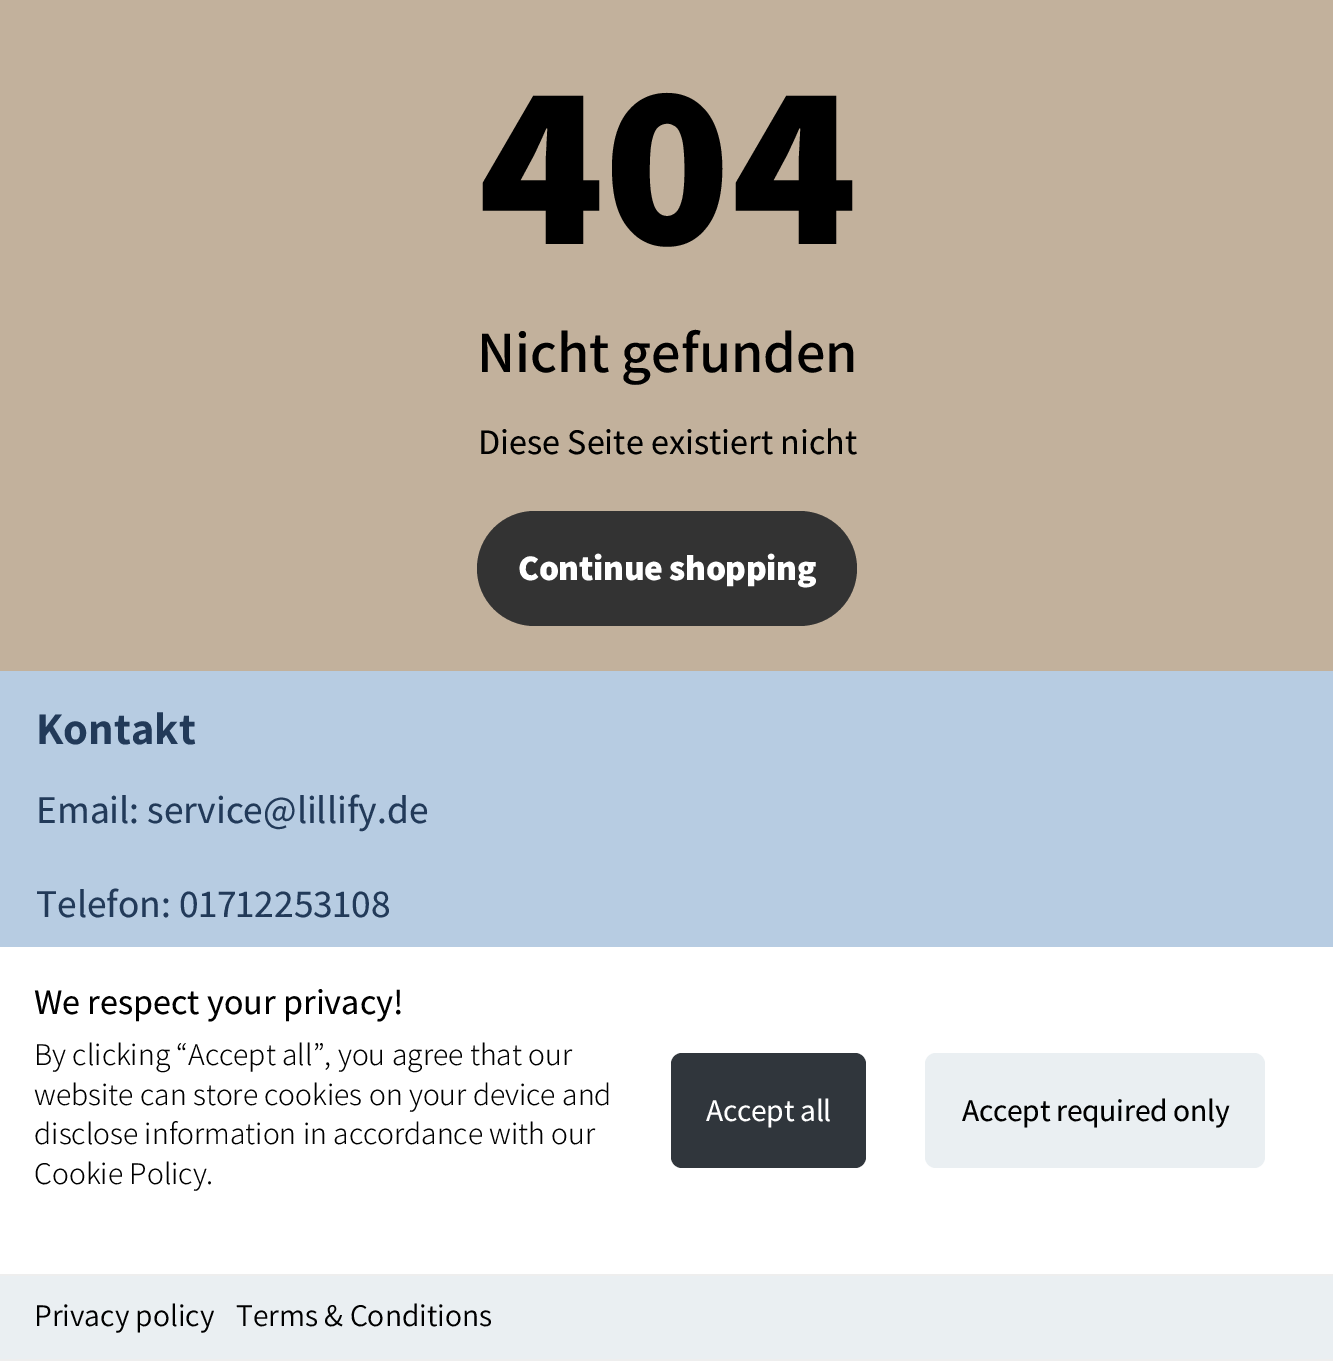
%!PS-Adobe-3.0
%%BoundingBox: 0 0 1333 1361
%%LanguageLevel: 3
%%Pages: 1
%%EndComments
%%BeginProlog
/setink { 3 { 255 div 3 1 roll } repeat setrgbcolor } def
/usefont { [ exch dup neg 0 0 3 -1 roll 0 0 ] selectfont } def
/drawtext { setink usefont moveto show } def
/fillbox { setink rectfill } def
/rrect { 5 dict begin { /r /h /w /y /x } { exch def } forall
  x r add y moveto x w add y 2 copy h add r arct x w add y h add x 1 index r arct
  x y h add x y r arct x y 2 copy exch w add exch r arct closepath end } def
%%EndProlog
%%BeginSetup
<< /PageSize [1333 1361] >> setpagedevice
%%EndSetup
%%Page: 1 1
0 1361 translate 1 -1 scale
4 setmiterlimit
0 0 1333 1361 194 177 156 fillbox
(404) 478 244 /Assistant-ExtraBold 234 0 0 0 drawtext
(Nicht gefunden) 477 372 /Assistant-SemiBold 58.5 0 0 0 drawtext
(Diese Seite existiert nicht) 478 454 /Assistant-Medium 36 0 0 0 drawtext
51 51 51 setink
477 511 380 115 57.5 rrect fill
/Assistant-ExtraBold 36 usefont
255 255 255 setink
518 580 moveto -0.4 0 (Continue shopping) ashow
0 671 1333 276 183 204 226 fillbox
(Kontakt) 36 744 /Assistant-Bold 45 34 58 89 drawtext
(Email: service@lillify.de) 36 823 /Assistant-Medium 39.4 34 58 89 drawtext
(Telefon: 01712253108) 36 917 /Assistant-Medium 39.4 34 58 89 drawtext
0 947 1333 327 255 255 255 fillbox
(We respect your privacy!) 34 1014 /Assistant-Medium 36 0 0 0 drawtext
(By clicking “Accept all”, you agree that our) 34 1065 /Assistant-Light 31.5 0 0 0 drawtext
(website can store cookies on your device and) 34 1105 /Assistant-Light 31.5 0 0 0 drawtext
(disclose information in accordance with our) 34 1144 /Assistant-Light 31.5 0 0 0 drawtext
(Cookie Policy.) 34 1184 /Assistant-Light 31.5 0 0 0 drawtext
48 54 60 setink
671 1053 195 115 11 rrect fill
/Assistant-Medium 31.5 usefont
255 255 255 setink
706 1121 moveto -0.3 0 (Accept all) ashow
234 239 242 setink
925 1053 340 115 11 rrect fill
0 0 0 setink
962 1121 moveto -0.3 0 (Accept required only) ashow
0 1276 1333 83 234 239 242 fillbox
0 1274 1333 2 238 238 238 fillbox
0 1359 1333 2 238 238 238 fillbox
(Privacy policy) 34 1326 /Assistant-Regular 31.5 0 0 0 drawtext
(Terms & Conditions) 236 1326 /Assistant-Regular 31.5 0 0 0 drawtext
showpage
%%EOF
